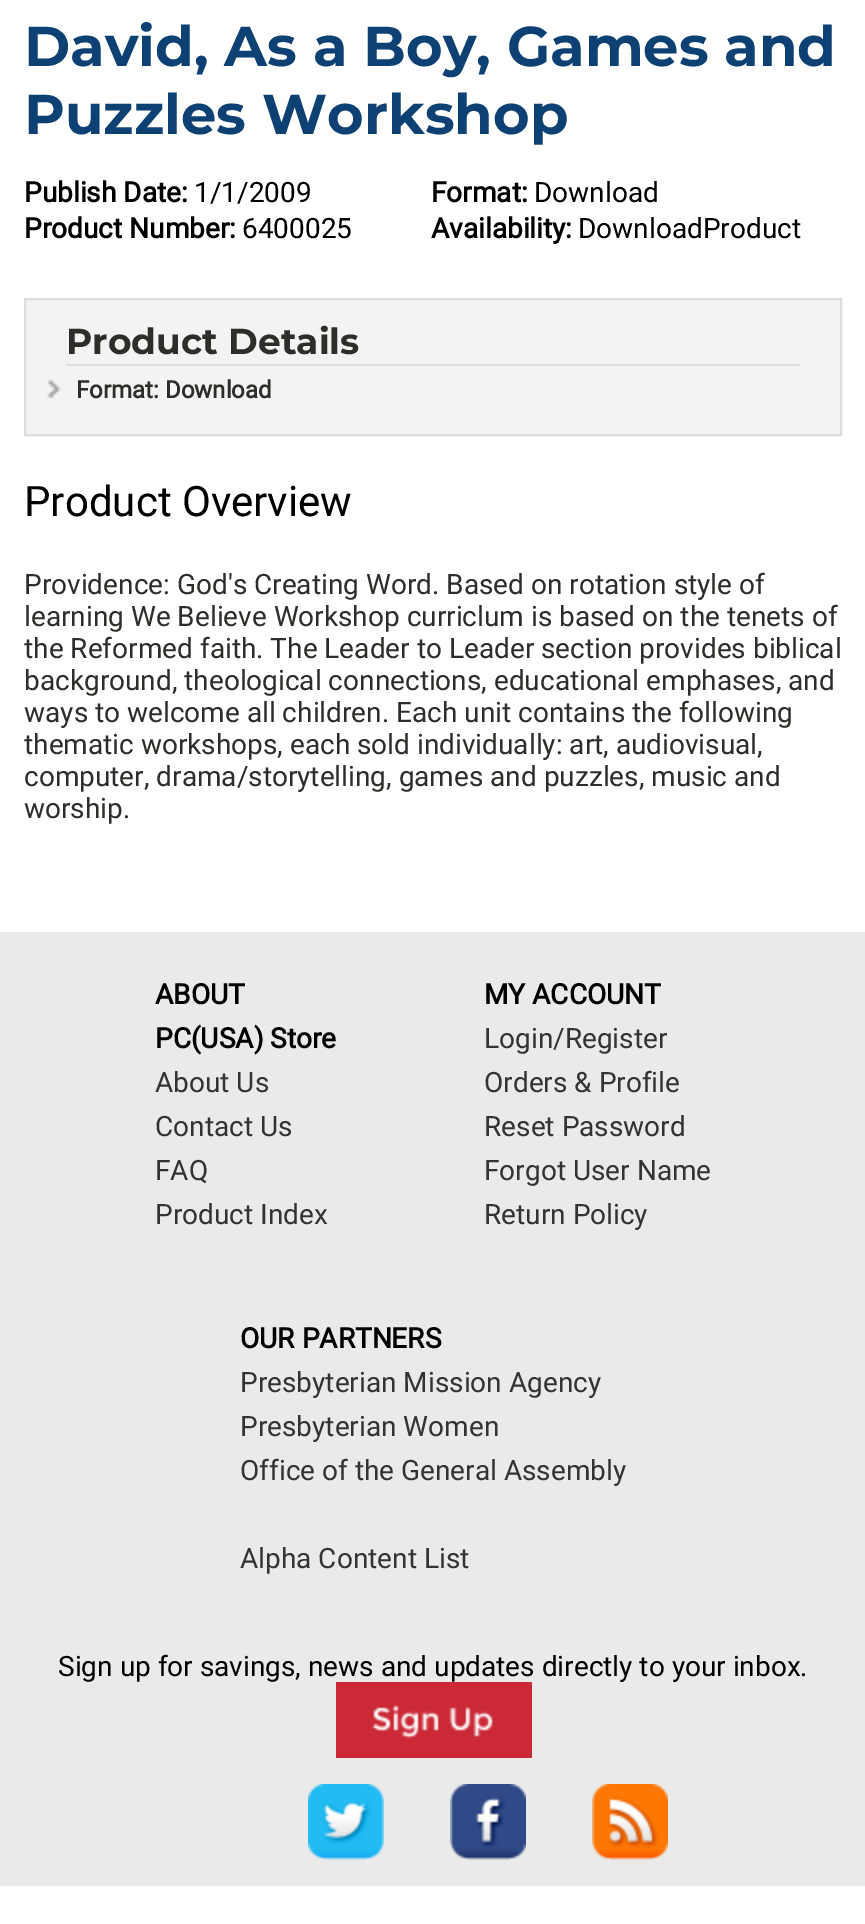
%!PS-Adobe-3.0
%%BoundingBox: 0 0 865 1924
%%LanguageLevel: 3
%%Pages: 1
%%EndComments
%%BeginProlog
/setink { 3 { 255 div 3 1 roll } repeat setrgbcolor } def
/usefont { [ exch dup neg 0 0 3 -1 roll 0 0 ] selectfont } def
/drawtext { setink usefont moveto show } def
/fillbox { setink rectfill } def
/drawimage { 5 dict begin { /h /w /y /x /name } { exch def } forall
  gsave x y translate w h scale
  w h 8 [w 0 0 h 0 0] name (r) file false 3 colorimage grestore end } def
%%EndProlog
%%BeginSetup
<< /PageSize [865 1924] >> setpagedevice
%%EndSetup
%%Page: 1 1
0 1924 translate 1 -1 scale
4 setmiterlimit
0 0 865 1924 255 255 255 fillbox
(David, As a Boy, Games and) 24 66 /Montserrat-Bold 56 13 65 115 drawtext
(Puzzles Workshop) 24 134 /Montserrat-Bold 56 13 65 115 drawtext
(Publish Date:) 24 202 /Roboto-Bold 28 0 0 0 drawtext
(1/1/2009) 194 202 /Roboto-Regular 28 0 0 0 drawtext
(Product Number:) 24 238 /Roboto-Bold 28 0 0 0 drawtext
(6400025) 242 238 /Roboto-Regular 28 0 0 0 drawtext
(Format:) 431 202 /Roboto-Bold 28 0 0 0 drawtext
(Download) 534 202 /Roboto-Regular 28 0 0 0 drawtext
(Availability:) 431 238 /Roboto-Bold 28 0 0 0 drawtext
(DownloadProduct) 578 238 /Roboto-Regular 28 0 0 0 drawtext
243 243 243 setink
25 299 moveto 841 299 lineto 841 435 lineto 25 435 lineto closepath gsave fill grestore
221 221 221 setink
2 setlinewidth
stroke
66 364 734 2 221 221 221 fillbox
(Product Details) 66 354 /Montserrat-Bold 36 46 45 41 drawtext
(assets/img1.rgb) 44 378 17 20 drawimage
(Format: Download) 76 398 /Roboto-Bold 24 46 45 41 drawtext
(Product Overview) 24 516 /Roboto-Regular 42 0 0 0 drawtext
(Providence: God's Creating Word. Based on rotation style of) 24 594 /Roboto-Regular 28 46 45 41 drawtext
(learning We Believe Workshop curriclum is based on the tenets of) 24 626 /Roboto-Regular 28 46 45 41 drawtext
(the Reformed faith. The Leader to Leader section provides biblical) 24 658 /Roboto-Regular 28 46 45 41 drawtext
(background, theological connections, educational emphases, and) 24 690 /Roboto-Regular 28 46 45 41 drawtext
(ways to welcome all children. Each unit contains the following) 24 722 /Roboto-Regular 28 46 45 41 drawtext
(thematic workshops, each sold individually: art, audiovisual,) 24 754 /Roboto-Regular 28 46 45 41 drawtext
(computer, drama/storytelling, games and puzzles, music and) 24 786 /Roboto-Regular 28 46 45 41 drawtext
(worship.) 24 818 /Roboto-Regular 28 46 45 41 drawtext
0 932 865 954 234 234 234 fillbox
(ABOUT) 155 1004 /Roboto-Bold 28 0 0 0 drawtext
(PC\(USA\) Store) 155 1048 /Roboto-Bold 28 0 0 0 drawtext
(About Us) 155 1092 /Roboto-Regular 28 51 51 51 drawtext
(Contact Us) 155 1136 /Roboto-Regular 28 51 51 51 drawtext
(FAQ) 155 1180 /Roboto-Regular 28 51 51 51 drawtext
(Product Index) 155 1224 /Roboto-Regular 28 51 51 51 drawtext
(MY ACCOUNT) 484 1004 /Roboto-Bold 28 0 0 0 drawtext
(Login/Register) 484 1048 /Roboto-Regular 28 51 51 51 drawtext
(Orders & Profile) 484 1092 /Roboto-Regular 28 51 51 51 drawtext
(Reset Password) 484 1136 /Roboto-Regular 28 51 51 51 drawtext
(Forgot User Name) 484 1180 /Roboto-Regular 28 51 51 51 drawtext
(Return Policy) 484 1224 /Roboto-Regular 28 51 51 51 drawtext
(OUR PARTNERS) 240 1348 /Roboto-Bold 28 0 0 0 drawtext
(Presbyterian Mission Agency) 240 1392 /Roboto-Regular 28 51 51 51 drawtext
(Presbyterian Women) 240 1436 /Roboto-Regular 28 51 51 51 drawtext
(Office of the General Assembly) 240 1480 /Roboto-Regular 28 51 51 51 drawtext
(Alpha Content List) 240 1568 /Roboto-Regular 28 51 51 51 drawtext
(Sign up for savings, news and updates directly to your inbox.) 58 1676 /Roboto-Regular 28 0 0 0 drawtext
(assets/img2.rgb) 336 1682 196 76 drawimage
(assets/img3.rgb) 308 1784 76 76 drawimage
(assets/img4.rgb) 450 1784 76 76 drawimage
(assets/img5.rgb) 592 1784 76 76 drawimage
showpage
%%EOF
